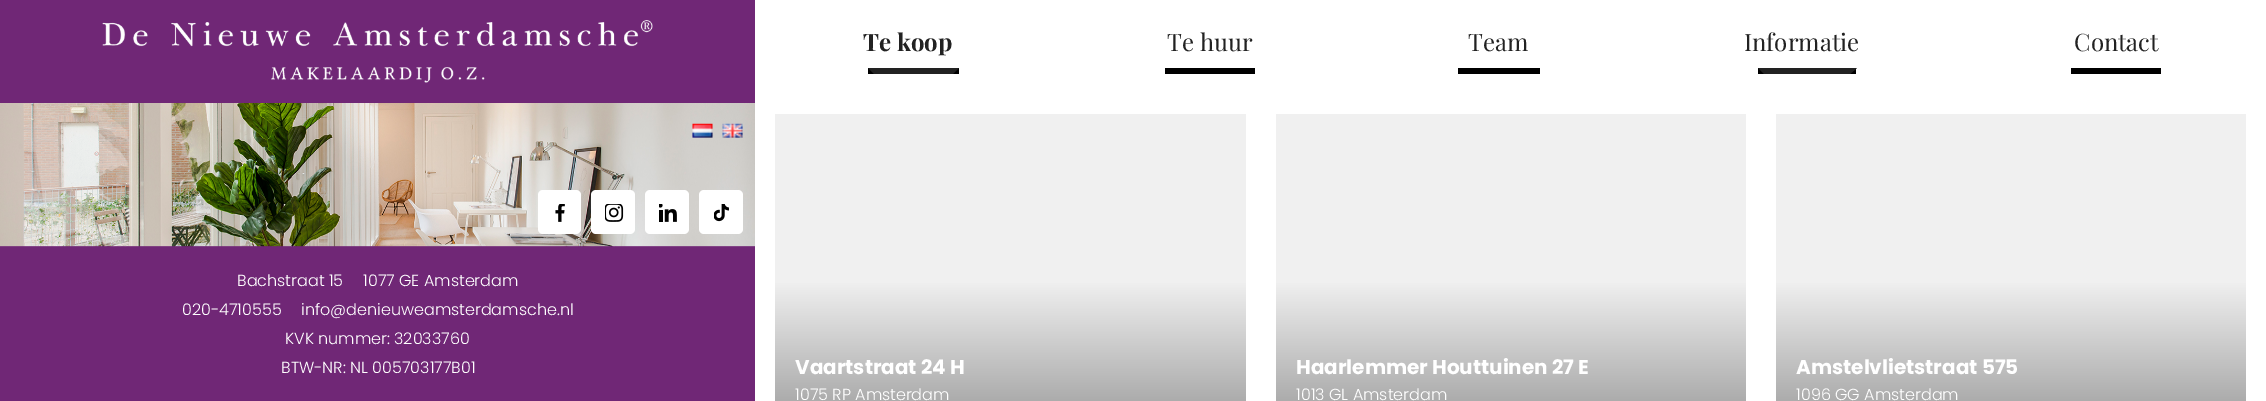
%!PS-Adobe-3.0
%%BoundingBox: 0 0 2266 401
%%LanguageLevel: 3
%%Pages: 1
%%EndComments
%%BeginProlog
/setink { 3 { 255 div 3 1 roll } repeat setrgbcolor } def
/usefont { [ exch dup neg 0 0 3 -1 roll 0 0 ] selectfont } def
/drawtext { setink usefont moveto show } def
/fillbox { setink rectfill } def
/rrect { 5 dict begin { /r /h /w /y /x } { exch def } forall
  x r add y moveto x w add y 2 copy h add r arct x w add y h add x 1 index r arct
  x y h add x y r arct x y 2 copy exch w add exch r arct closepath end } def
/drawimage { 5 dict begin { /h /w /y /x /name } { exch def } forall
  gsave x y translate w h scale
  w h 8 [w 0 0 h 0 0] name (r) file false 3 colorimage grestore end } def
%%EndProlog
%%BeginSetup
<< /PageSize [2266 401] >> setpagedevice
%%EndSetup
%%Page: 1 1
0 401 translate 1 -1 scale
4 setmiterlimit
0 0 2266 401 255 255 255 fillbox
0 0 755 401 112 39 118 fillbox
(assets/img1.rgb) 102 20 551 63 drawimage
(assets/img2.rgb) 0 103 755 144 drawimage
(assets/img3.rgb) 692 123 21 15 drawimage
(assets/img4.rgb) 722 123 21 15 drawimage
255 255 255 setink
538 190 43 44 5 rrect fill
(assets/img5.rgb) 555 204 10 18 drawimage
591 190 44 44 5 rrect fill
(assets/img6.rgb) 605 204 19 18 drawimage
645 190 44 44 5 rrect fill
(assets/img7.rgb) 659 204 18 18 drawimage
699 190 44 44 5 rrect fill
(assets/img8.rgb) 714 204 15 18 drawimage
(Bachstraat 15) 237 286 /Poppins-Light 16 255 255 255 drawtext
(1077 GE Amsterdam) 363 286 /Poppins-Light 16 255 255 255 drawtext
(020-4710555) 182 315 /Poppins-Light 16 255 255 255 drawtext
(info@denieuweamsterdamsche.nl) 301 315 /Poppins-Light 16 255 255 255 drawtext
(KVK nummer: 32033760) 285 344 /Poppins-Light 16 255 255 255 drawtext
(BTW-NR: NL 005703177B01) 281 373 /Poppins-Light 16 255 255 255 drawtext
(Te koop) 863 51 /PlayfairDisplay-Bold 24 34 34 34 drawtext
868 68 91 6 0 0 0 fillbox
34 34 34 setink
868 68 moveto 959 68 lineto 953 74 lineto 874 74 lineto closepath fill
(Te huur) 1167 51 /PlayfairDisplay-Regular 24 34 34 34 drawtext
1165 68 90 6 0 0 0 fillbox
(Team) 1468 51 /PlayfairDisplay-Regular 24 34 34 34 drawtext
1458 68 82 6 0 0 0 fillbox
(Informatie) 1744 51 /PlayfairDisplay-Regular 24 34 34 34 drawtext
1758 68 98 6 0 0 0 fillbox
34 34 34 setink
1758 68 moveto 1857 68 lineto 1850 74 lineto 1764 74 lineto closepath fill
(Contact) 2074 51 /PlayfairDisplay-Regular 24 34 34 34 drawtext
2071 68 90 6 0 0 0 fillbox
775 114 471 169 240 240 240 fillbox
gsave 775 283 moveto 1246 283 lineto 1246 401 lineto 775 401 lineto closepath clip newpath
<< /ShadingType 2 /ColorSpace /DeviceRGB /Coords [1011 282 1011 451] /Extend [true true] /Function << /FunctionType 2 /Domain [0 1] /C0 [0.941 0.941 0.941] /C1 [0.565 0.565 0.565] /N 1 >> >> shfill grestore
(Vaartstraat 24 H) 795 374 /Poppins-Bold 20 255 255 255 drawtext
(1075 RP Amsterdam) 795 400 /Poppins-Light 16 255 255 255 drawtext
1276 114 470 169 240 240 240 fillbox
gsave 1276 283 moveto 1746 283 lineto 1746 401 lineto 1276 401 lineto closepath clip newpath
<< /ShadingType 2 /ColorSpace /DeviceRGB /Coords [1511 282 1511 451] /Extend [true true] /Function << /FunctionType 2 /Domain [0 1] /C0 [0.941 0.941 0.941] /C1 [0.565 0.565 0.565] /N 1 >> >> shfill grestore
(Haarlemmer Houttuinen 27 E) 1296 374 /Poppins-Bold 20 255 255 255 drawtext
(1013 GL Amsterdam) 1296 400 /Poppins-Light 16 255 255 255 drawtext
1776 114 470 169 240 240 240 fillbox
gsave 1776 283 moveto 2246 283 lineto 2246 401 lineto 1776 401 lineto closepath clip newpath
<< /ShadingType 2 /ColorSpace /DeviceRGB /Coords [2011 282 2011 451] /Extend [true true] /Function << /FunctionType 2 /Domain [0 1] /C0 [0.941 0.941 0.941] /C1 [0.565 0.565 0.565] /N 1 >> >> shfill grestore
(Amstelvlietstraat 575) 1796 374 /Poppins-Bold 20 255 255 255 drawtext
(1096 GG Amsterdam) 1796 400 /Poppins-Light 16 255 255 255 drawtext
showpage
%%EOF
